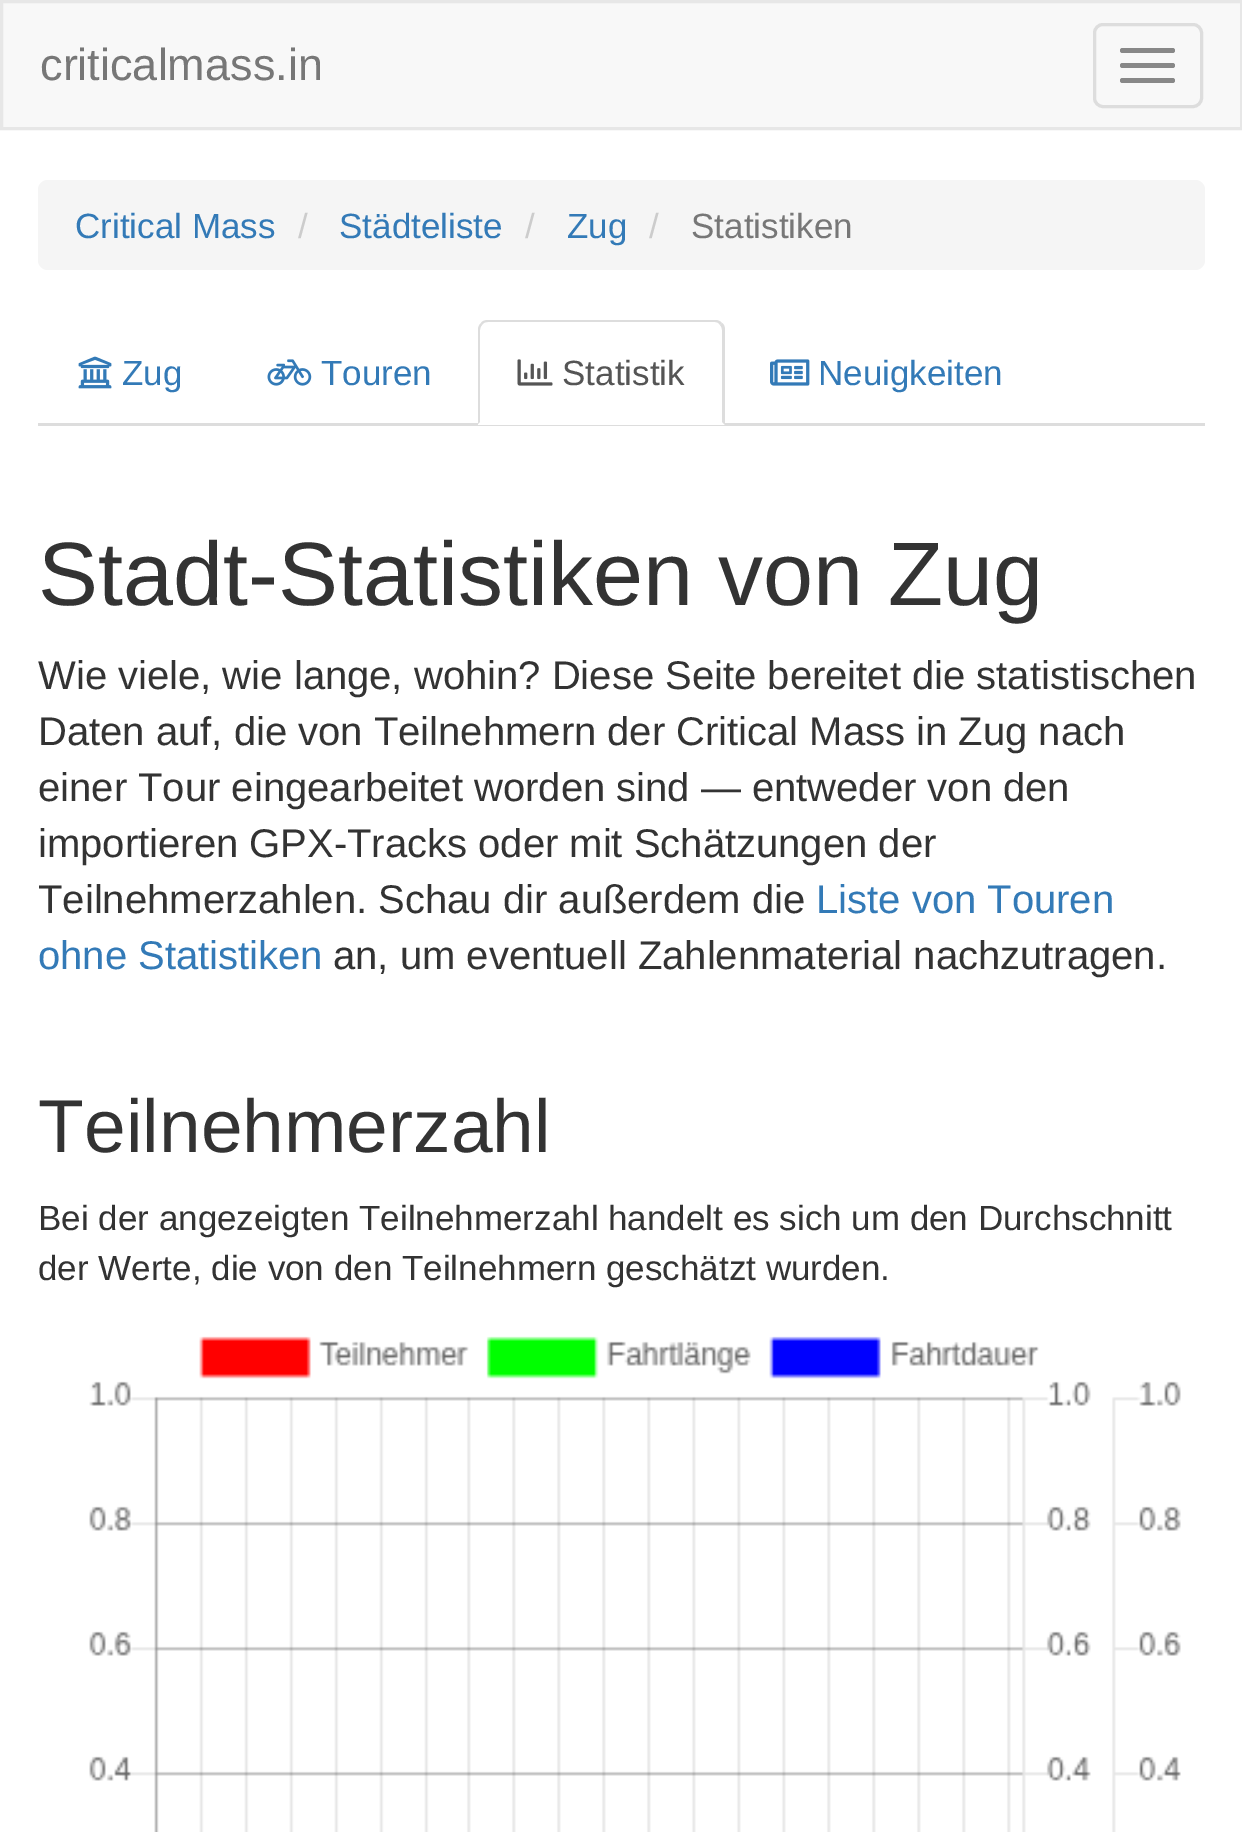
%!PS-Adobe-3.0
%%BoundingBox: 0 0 1242 1832
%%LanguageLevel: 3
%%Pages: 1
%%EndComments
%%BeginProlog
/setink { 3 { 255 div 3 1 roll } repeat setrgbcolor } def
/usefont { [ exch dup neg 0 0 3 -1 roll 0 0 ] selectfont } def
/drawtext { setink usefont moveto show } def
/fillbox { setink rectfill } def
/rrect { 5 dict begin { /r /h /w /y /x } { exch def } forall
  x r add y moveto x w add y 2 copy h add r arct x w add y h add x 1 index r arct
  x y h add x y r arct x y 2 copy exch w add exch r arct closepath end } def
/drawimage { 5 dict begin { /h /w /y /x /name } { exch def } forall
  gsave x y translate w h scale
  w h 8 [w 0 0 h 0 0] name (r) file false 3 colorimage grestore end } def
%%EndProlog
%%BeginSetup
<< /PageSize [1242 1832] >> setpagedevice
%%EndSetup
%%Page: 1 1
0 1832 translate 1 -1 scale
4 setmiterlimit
0 0 1242 1832 255 255 255 fillbox
248 248 248 setink
1.5 1.5 moveto 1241.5 1.5 lineto 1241.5 128.5 lineto 1.5 128.5 lineto closepath gsave fill grestore
231 231 231 setink
3 setlinewidth
stroke
(criticalmass.in) 40 80 /LiberationSans-Regular 45 119 119 119 drawtext
221 221 221 setink
1094.5 24.5 107 82 8.5 rrect stroke
136 136 136 setink
1120 48 55 5 2.5 rrect fill
1120 63 55 5 2.5 rrect fill
1120 78 55 5 2.5 rrect fill
245 245 245 setink
38 180 1167 90 10 rrect fill
(Critical Mass) 75 238 /LiberationSans-Regular 35 51 122 183 drawtext
(/) 298 238 /LiberationSans-Regular 35 204 204 204 drawtext
(Städteliste) 339 238 /LiberationSans-Regular 35 51 122 183 drawtext
(/) 525 238 /LiberationSans-Regular 35 204 204 204 drawtext
(Zug) 567 238 /LiberationSans-Regular 35 51 122 183 drawtext
(/) 649 238 /LiberationSans-Regular 35 204 204 204 drawtext
(Statistiken) 691 238 /LiberationSans-Regular 35 119 119 119 drawtext
38 423 1167 3 221 221 221 fillbox
(assets/img1.rgb) 78 356 34 33 drawimage
(Zug) 122 385 /LiberationSans-Regular 35 51 122 183 drawtext
(assets/img2.rgb) 267 359 45 27 drawimage
(Touren) 321 385 /LiberationSans-Regular 35 51 122 183 drawtext
255 255 255 setink
488 320 moveto 715 320 lineto 720.5 320 725 324.5 725 330 curveto 725 425 lineto 478 425 lineto 478 330 lineto 478 324.5 482.5 320 488 320 curveto closepath fill
221 221 221 setink
488 320 moveto 485 320 482 321 481 323 curveto 482 325 lineto 483 323 485 322 488 322 curveto 715 322 lineto 717 322 719 323 720 325 curveto 722 323 lineto 720 321 718 320 715 320 curveto closepath fill
725 425 moveto 725 330 lineto 725 327 724 324 722 323 curveto 720 325 lineto 721 326 722 328 722 330 curveto 722 422 lineto closepath fill
481 323 moveto 479 325 478 327 478 330 curveto 478 424 lineto 480 422 lineto 480 330 lineto 480 328 481 326 482 325 curveto closepath fill
(assets/img3.rgb) 517 359 36 27 drawimage
(Statistik) 562 385 /LiberationSans-Regular 35 85 85 85 drawtext
(assets/img4.rgb) 770 359 40 27 drawimage
(Neuigkeiten) 818 385 /LiberationSans-Regular 35 51 122 183 drawtext
(Stadt-Statistiken von Zug) 38 605 /LiberationSans-Regular 90 51 51 51 drawtext
(Wie viele, wie lange, wohin? Diese Seite bereitet die statistischen) 38 689 /LiberationSans-Regular 40 51 51 51 drawtext
(Daten auf, die von Teilnehmern der Critical Mass in Zug nach) 38 745 /LiberationSans-Regular 40 51 51 51 drawtext
(einer Tour eingearbeitet worden sind — entweder von den) 38 801 /LiberationSans-Regular 40 51 51 51 drawtext
(importieren GPX-Tracks oder mit Schätzungen der) 38 857 /LiberationSans-Regular 40 51 51 51 drawtext
(Teilnehmerzahlen. Schau dir außerdem die) 38 913 /LiberationSans-Regular 40 51 51 51 drawtext
(Liste von Touren) 816 913 /LiberationSans-Regular 40 51 122 183 drawtext
(ohne Statistiken) 38 969 /LiberationSans-Regular 40 51 122 183 drawtext
(an, um eventuell Zahlenmaterial nachzutragen.) 333 969 /LiberationSans-Regular 40 51 51 51 drawtext
(Teilnehmerzahl) 38 1152 /LiberationSans-Regular 75 51 51 51 drawtext
(Bei der angezeigten Teilnehmerzahl handelt es sich um den Durchschnitt) 38 1230 /LiberationSans-Regular 35 51 51 51 drawtext
(der Werte, die von den Teilnehmern geschätzt wurden.) 38 1280 /LiberationSans-Regular 35 51 51 51 drawtext
(assets/img5.rgb) 89 1336 1092 496 drawimage
showpage
%%EOF
